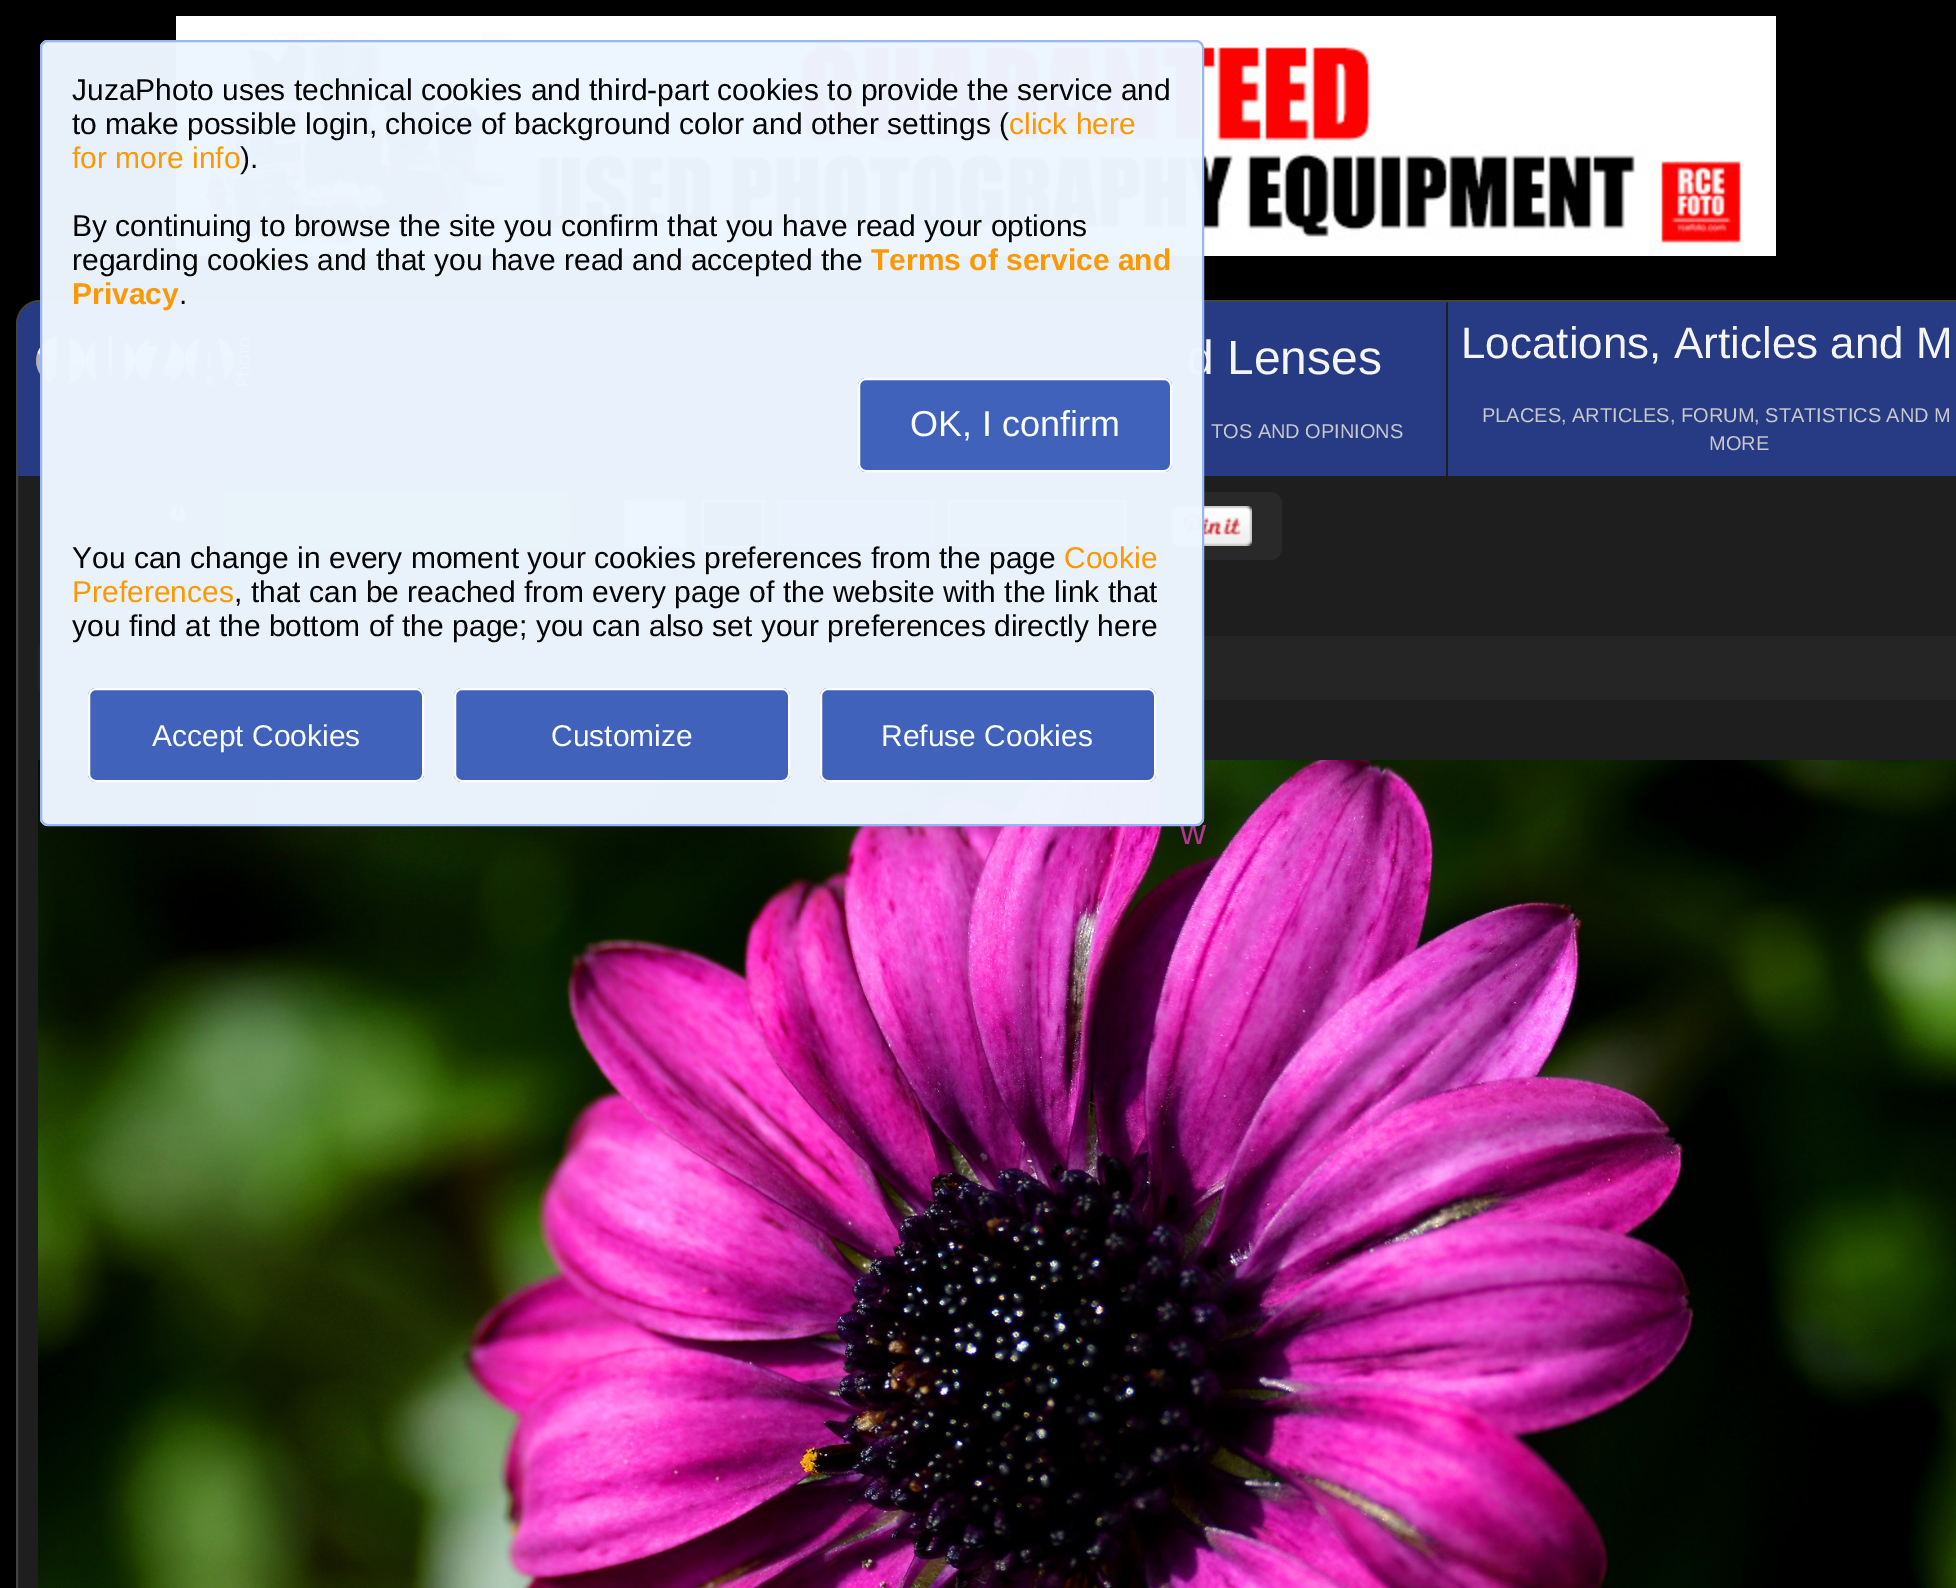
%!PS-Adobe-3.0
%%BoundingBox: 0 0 1956 1588
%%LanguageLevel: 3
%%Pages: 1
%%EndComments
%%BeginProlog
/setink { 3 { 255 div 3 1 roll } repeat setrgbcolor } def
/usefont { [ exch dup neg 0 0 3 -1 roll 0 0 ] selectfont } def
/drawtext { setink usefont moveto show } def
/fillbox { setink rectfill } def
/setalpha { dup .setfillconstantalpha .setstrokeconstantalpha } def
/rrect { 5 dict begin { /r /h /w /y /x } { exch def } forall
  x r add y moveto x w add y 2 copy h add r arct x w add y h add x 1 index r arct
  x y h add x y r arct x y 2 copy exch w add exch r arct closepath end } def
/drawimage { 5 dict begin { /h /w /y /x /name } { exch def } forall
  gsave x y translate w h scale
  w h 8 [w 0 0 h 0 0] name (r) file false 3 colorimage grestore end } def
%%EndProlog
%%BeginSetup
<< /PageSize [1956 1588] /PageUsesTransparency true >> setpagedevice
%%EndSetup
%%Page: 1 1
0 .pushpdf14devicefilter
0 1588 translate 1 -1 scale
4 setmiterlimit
0 0 1956 1588 0 0 0 fillbox
(assets/img1.rgb) 176 16 1600 240 drawimage
30 30 30 setink
17 301 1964 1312 23 rrect gsave fill grestore
66 66 66 setink
2 setlinewidth
stroke
0.95 setalpha
39 60 137 setink
40 302 moveto 276 302 lineto 276 476 lineto 18 476 lineto 18 324 lineto 18 312 28 302 40 302 curveto closepath fill
1 setalpha
(assets/img2.rgb) 36 336 214 50 drawimage
278 302 582 174 39 59 132 fillbox
862 302 584 174 39 59 132 fillbox
(d Lenses) 1187 374 /LiberationSans-Regular 48 244 244 244 drawtext
41 41 41 setink
58 490 moveto 222 490 lineto 222 550 lineto 58 550 lineto 51.5 550 46 544.5 46 538 curveto 46 502 lineto 46 495.5 51.5 490 58 490 curveto closepath fill
(assets/img3.rgb) 167 503 22 22 drawimage
0 128 0 setink
224 490 moveto 558 490 lineto 564.5 490 570 495.5 570 502 curveto 570 538 lineto 570 544.5 564.5 550 558 550 curveto 224 550 lineto closepath fill
41 41 41 setink
596 492 686 68 12 rrect fill
234 234 234 setink
625 501 moveto 685 501 lineto 685 547 lineto 625 547 lineto closepath gsave fill grestore
187 187 187 setink
stroke
4 4 4 setink
703 501 moveto 763 501 lineto 763 547 lineto 703 547 lineto closepath gsave fill grestore
187 187 187 setink
stroke
778 500 156 2 129 150 211 fillbox
778 544 42 2 129 150 211 fillbox
778 500 2 46 129 150 211 fillbox
780 502 152 42 54 80 157 fillbox
932 500 2 46 129 150 211 fillbox
86 144 75 setink
949 501 moveto 1125 501 lineto 1125 545 lineto 949 545 lineto closepath gsave fill grestore
170 204 163 setink
stroke
820 544 114 2 129 150 211 fillbox
(assets/img4.rgb) 1172 506 80 40 drawimage
37 37 37 setink
38 636 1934 64 16 rrect fill
(assets/img5.rgb) 38 760 1918 828 drawimage
(w) 1180 844 /LiberationSans-Regular 36 181 52 145 drawtext
0.98 setalpha
237 245 255 setink
40 40 1164 786 8 rrect fill
151 181 244 setink
41 41 1162 784 7 rrect stroke
1 setalpha
(JuzaPhoto uses technical cookies and third-part cookies to provide the service and) 72 100 /LiberationSans-Regular 30 5 5 5 drawtext
(to make possible login, choice of background color and other settings \() 72 134 /LiberationSans-Regular 30 5 5 5 drawtext
(click here) 1009 134 /LiberationSans-Regular 30 251 153 5 drawtext
(for more info) 72 168 /LiberationSans-Regular 30 251 153 5 drawtext
(\).) 240 168 /LiberationSans-Regular 30 5 5 5 drawtext
(By continuing to browse the site you confirm that you have read your options) 72 236 /LiberationSans-Regular 30 5 5 5 drawtext
(regarding cookies and that you have read and accepted the) 72 270 /LiberationSans-Regular 30 5 5 5 drawtext
(Terms of service and) 871 270 /LiberationSans-Bold 30 251 153 5 drawtext
(Privacy) 72 304 /LiberationSans-Bold 30 251 153 5 drawtext
(.) 179 304 /LiberationSans-Regular 30 5 5 5 drawtext
0.98 setalpha
61 95 186 setink
858 378 314 94 8 rrect fill
255 255 255 setink
859 379 312 92 7 rrect stroke
1 setalpha
(OK, I confirm) 910 436 /LiberationSans-Regular 36 251 252 254 drawtext
(You can change in every moment your cookies preferences from the page) 72 568 /LiberationSans-Regular 30 5 5 5 drawtext
(Cookie) 1064 568 /LiberationSans-Regular 30 251 153 5 drawtext
(Preferences) 72 602 /LiberationSans-Regular 30 251 153 5 drawtext
(, that can be reached from every page of the website with the link that) 234 602 /LiberationSans-Regular 30 5 5 5 drawtext
(you find at the bottom of the page; you can also set your preferences directly here) 72 636 /LiberationSans-Regular 30 5 5 5 drawtext
64 98 187 setink
88 688 336 94 8 rrect fill
0.98 setalpha
255 255 255 setink
89 689 334 92 7 rrect stroke
1 setalpha
(Accept Cookies) 152 746 /LiberationSans-Regular 30 251 252 254 drawtext
64 98 187 setink
454 688 336 94 8 rrect fill
0.98 setalpha
255 255 255 setink
455 689 334 92 7 rrect stroke
1 setalpha
(Customize) 551 746 /LiberationSans-Regular 30 251 252 254 drawtext
0.98 setalpha
61 95 186 setink
820 688 336 94 8 rrect fill
255 255 255 setink
821 689 334 92 7 rrect stroke
1 setalpha
(Refuse Cookies) 881 746 /LiberationSans-Regular 30 251 252 254 drawtext
(TOS AND OPINIONS) 1211 438 /LiberationSans-Regular 20 201 201 201 drawtext
1448 302 508 174 39 59 132 fillbox
(Locations, Articles and M) 1461 358 /LiberationSans-Regular 44 244 244 244 drawtext
(PLACES, ARTICLES, FORUM, STATISTICS AND M) 1482 422 /LiberationSans-Regular 20 201 201 201 drawtext
(MORE) 1709 450 /LiberationSans-Regular 20 201 201 201 drawtext
.poppdf14devicefilter showpage
%%EOF
